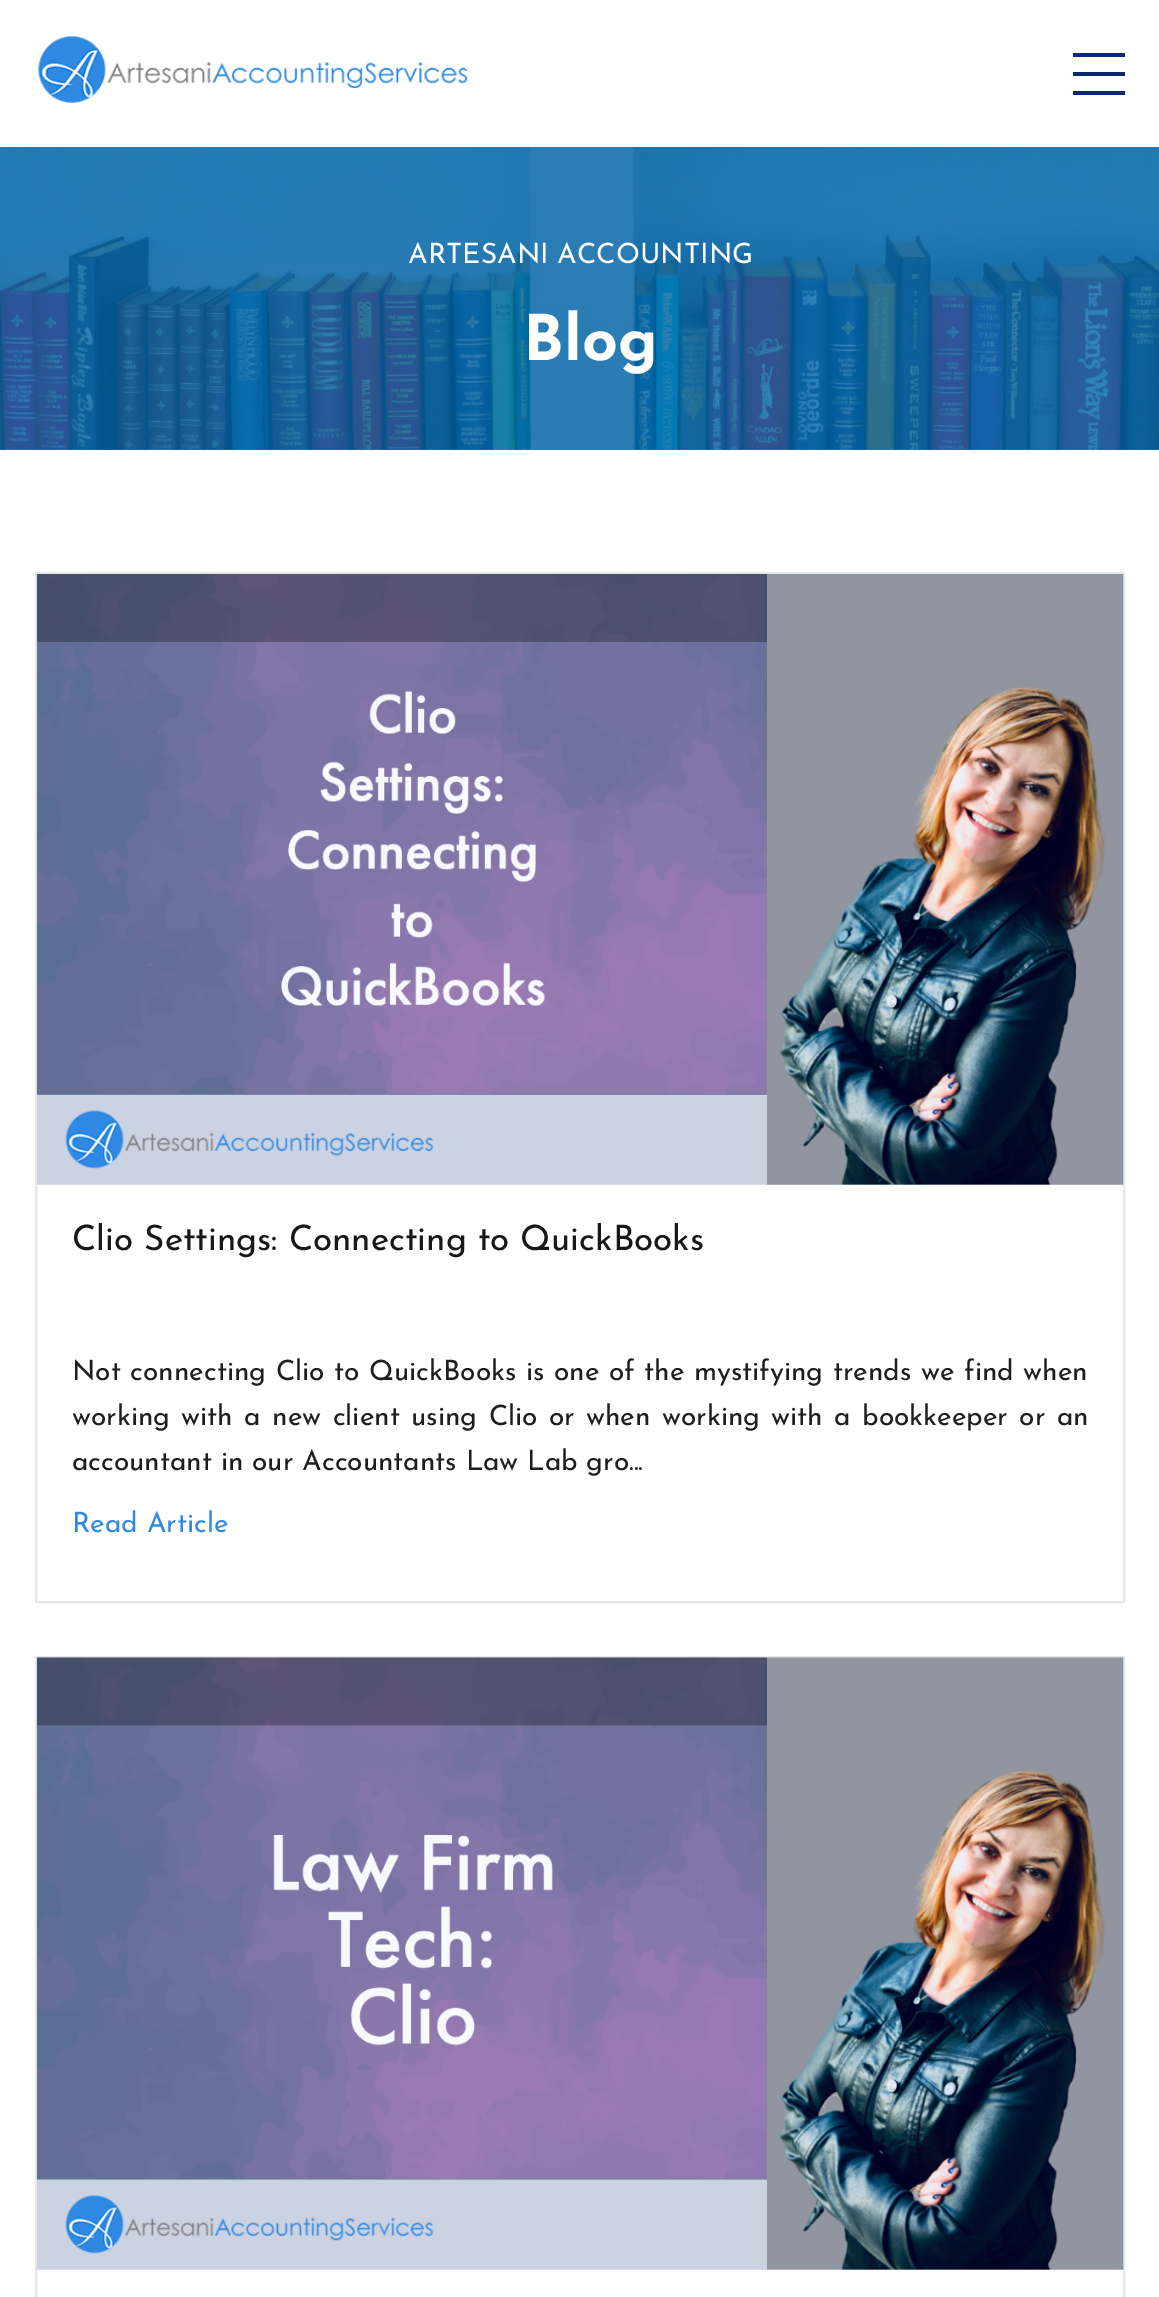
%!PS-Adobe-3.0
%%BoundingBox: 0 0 1159 2297
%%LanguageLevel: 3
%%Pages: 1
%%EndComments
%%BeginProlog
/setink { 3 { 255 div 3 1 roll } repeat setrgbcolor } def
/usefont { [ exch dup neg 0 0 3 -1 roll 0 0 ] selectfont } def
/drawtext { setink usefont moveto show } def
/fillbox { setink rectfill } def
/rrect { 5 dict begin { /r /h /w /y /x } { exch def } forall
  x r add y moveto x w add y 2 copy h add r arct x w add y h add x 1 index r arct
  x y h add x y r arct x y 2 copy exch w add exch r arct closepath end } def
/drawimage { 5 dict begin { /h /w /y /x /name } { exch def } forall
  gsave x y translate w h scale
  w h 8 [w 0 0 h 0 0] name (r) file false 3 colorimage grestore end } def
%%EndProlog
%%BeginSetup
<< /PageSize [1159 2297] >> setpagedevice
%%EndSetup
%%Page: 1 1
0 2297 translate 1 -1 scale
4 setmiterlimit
0 0 1159 2297 255 255 255 fillbox
(assets/img1.rgb) 38 36 430 67 drawimage
1073 53 52 4 8 42 110 fillbox
1073 72 52 4 8 42 110 fillbox
1073 91 52 4 8 42 110 fillbox
(assets/img2.rgb) 0 147 1159 303 drawimage
(ARTESANI ACCOUNTING) 408 263 /JosefinSans-Regular 28 255 255 255 drawtext
(Blog) 523 360 /JosefinSans-Bold 63 255 255 255 drawtext
230 232 232 setink
2 setlinewidth
36 573 1088 1029 1 rrect stroke
(assets/img3.rgb) 36 574 1088 611 drawimage
(Clio Settings: Connecting to QuickBooks) 72 1250 /JosefinSans-Regular 35 24 24 24 drawtext
/JosefinSans-Regular 28 usefont
29 30 32 setink
72 1380 moveto 0.75 0 32 (Not connecting Clio to QuickBooks is one of the mystifying trends we find when) widthshow
72 1425 moveto 2.6 0 32 (working with a new client using Clio or when working with a bookkeeper or an) widthshow
(accountant in our Accountants Law Lab gro...) 72 1470 /JosefinSans-Regular 28 29 30 32 drawtext
(Read Article) 72 1532 /JosefinSans-Regular 28 47 138 228 drawtext
230 232 232 setink
36 1657 1088 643 1 rrect stroke
(assets/img4.rgb) 36 1657 1088 613 drawimage
showpage
%%EOF
